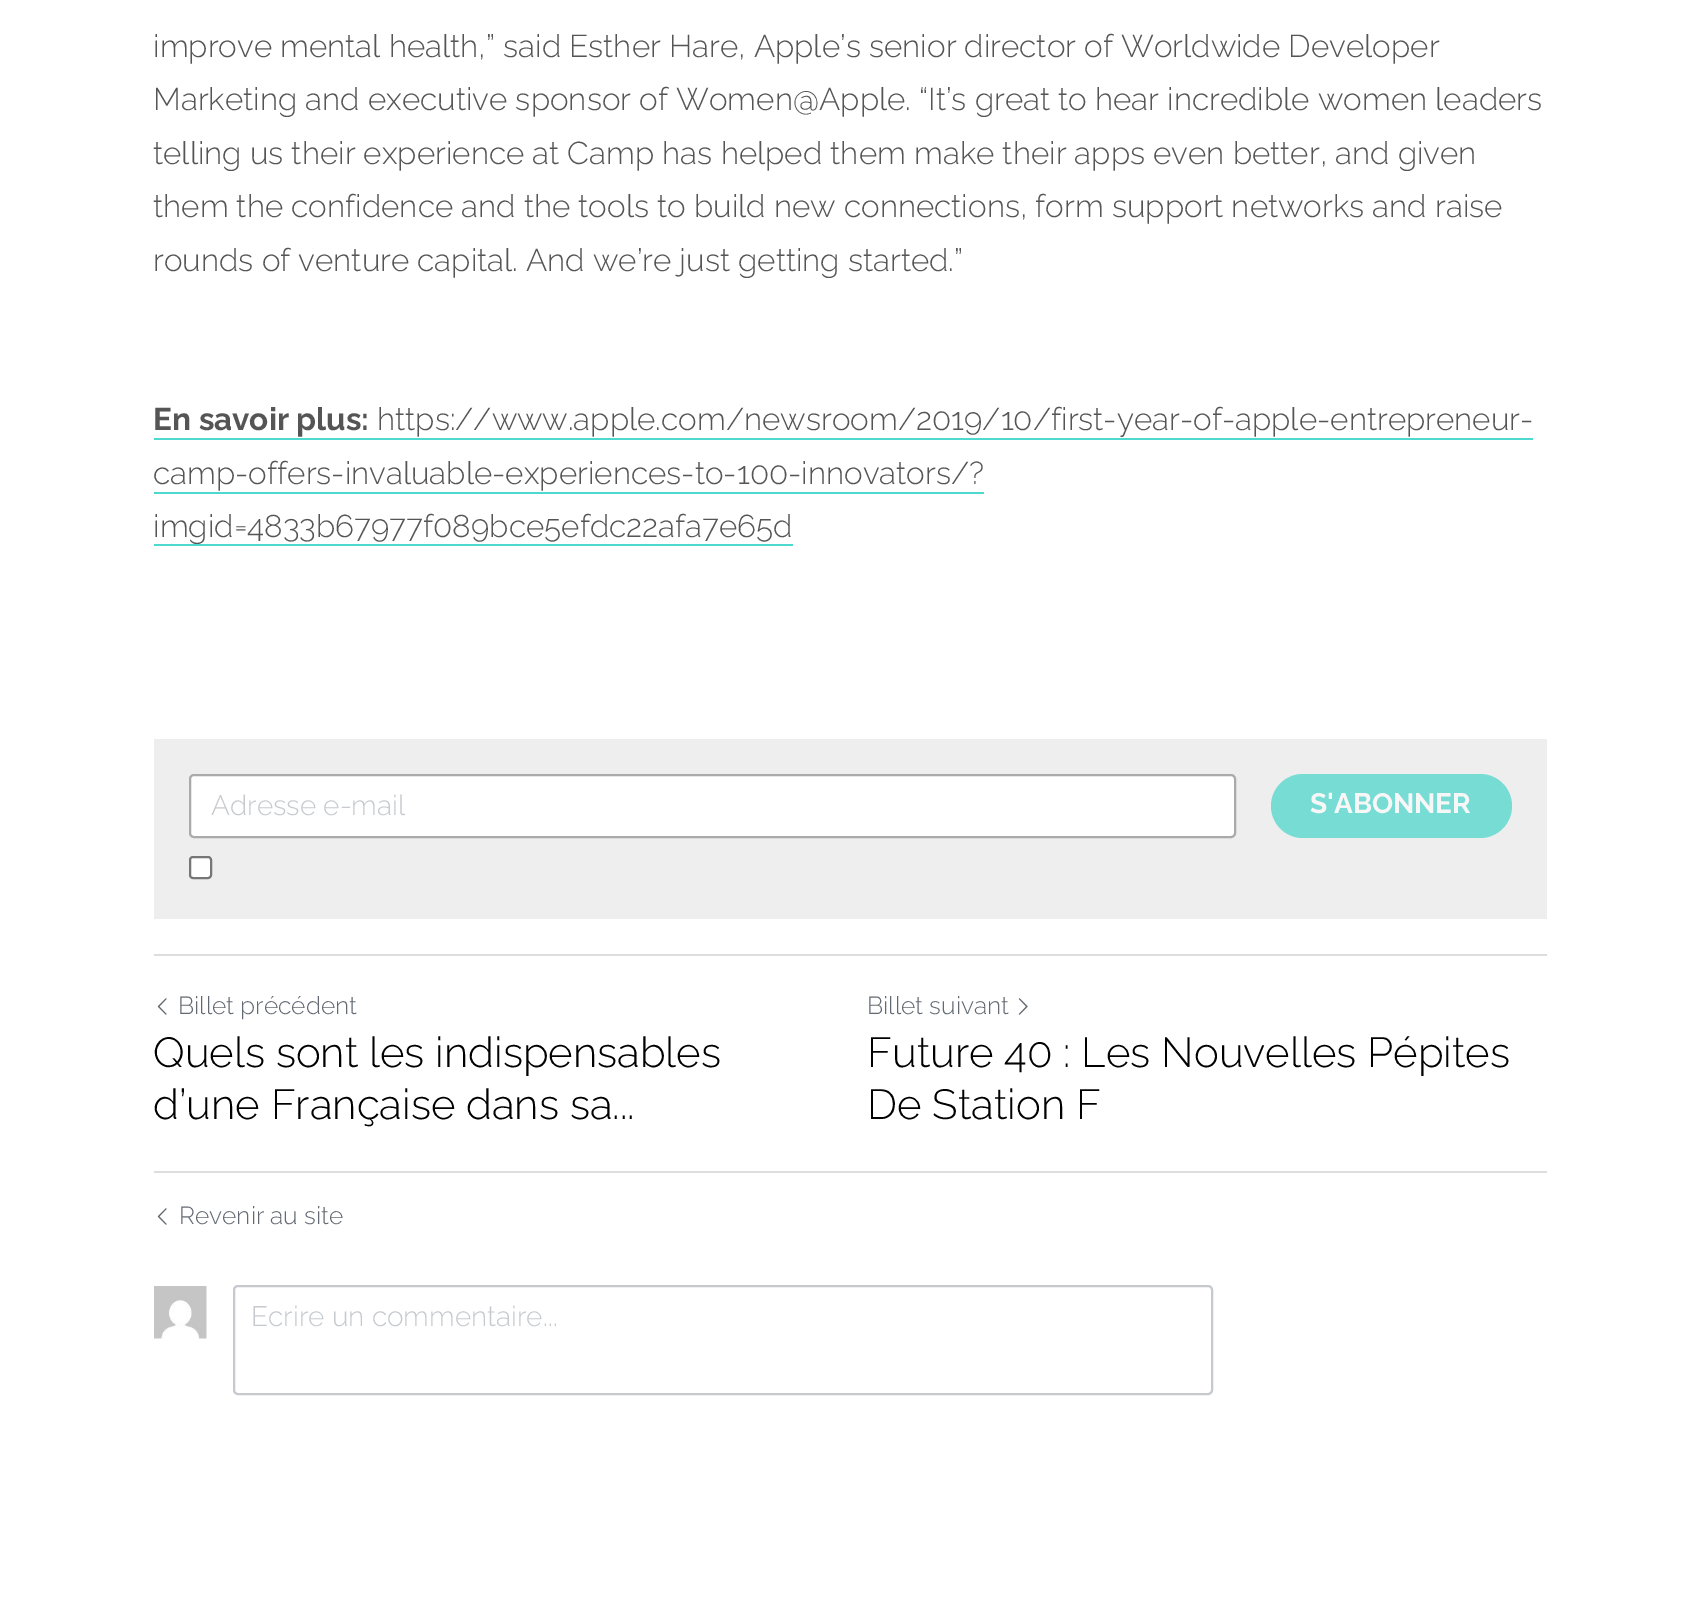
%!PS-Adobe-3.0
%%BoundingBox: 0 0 1698 1601
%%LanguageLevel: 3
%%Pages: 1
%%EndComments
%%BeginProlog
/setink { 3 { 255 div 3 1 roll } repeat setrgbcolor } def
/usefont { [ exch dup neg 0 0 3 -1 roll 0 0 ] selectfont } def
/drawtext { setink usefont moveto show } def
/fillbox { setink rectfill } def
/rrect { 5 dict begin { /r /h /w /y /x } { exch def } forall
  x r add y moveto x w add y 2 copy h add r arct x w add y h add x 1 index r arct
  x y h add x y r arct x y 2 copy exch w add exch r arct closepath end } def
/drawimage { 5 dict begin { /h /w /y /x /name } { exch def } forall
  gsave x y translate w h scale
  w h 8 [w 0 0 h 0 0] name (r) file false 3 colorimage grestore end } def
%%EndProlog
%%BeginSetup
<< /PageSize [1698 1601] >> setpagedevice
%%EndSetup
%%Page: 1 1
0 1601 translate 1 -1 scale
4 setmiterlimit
0 0 1698 1601 255 255 255 fillbox
(improve mental health,” said Esther Hare, Apple’s senior director of Worldwide Developer) 153 57 /Raleway-Light 31.5 85 85 85 drawtext
(Marketing and executive sponsor of Women@Apple. “It’s great to hear incredible women leaders) 153 110 /Raleway-Light 31.5 85 85 85 drawtext
(telling us their experience at Camp has helped them make their apps even better, and given) 153 164 /Raleway-Light 31.5 85 85 85 drawtext
(them the confidence and the tools to build new connections, form support networks and raise) 153 217 /Raleway-Light 31.5 85 85 85 drawtext
(rounds of venture capital. And we’re just getting started.”) 153 271 /Raleway-Light 31.5 85 85 85 drawtext
(En savoir plus:) 153 430 /Raleway-Bold 31.5 85 85 85 drawtext
154 438 1379 2 77 217 207 fillbox
(https://www.apple.com/newsroom/2019/10/first-year-of-apple-entrepreneur-) 377 430 /Raleway-Light 31.5 85 85 85 drawtext
(camp-offers-invaluable-experiences-to-100-innovators/?) 153 484 /Raleway-Light 31.5 85 85 85 drawtext
154 492 830 2 77 217 207 fillbox
(imgid=4833b67977f089bce5efdc22afa7e65d) 153 537 /Raleway-Light 31.5 85 85 85 drawtext
154 544 639 2 77 217 207 fillbox
154 739 1393 180 238 238 238 fillbox
255 255 255 setink
190 775 1045 62 4 rrect gsave fill grestore
170 170 170 setink
2 setlinewidth
stroke
(Adresse e-mail) 211 815 /Raleway-Light 28 198 201 205 drawtext
119 220 212 setink
1271 774 241 64 32 rrect fill
(S'ABONNER) 1310 813 /Raleway-Bold 28 247 247 247 drawtext
255 255 255 setink
190 857 21 21 3 rrect gsave fill grestore
118 118 118 setink
stroke
154 954 1393 2 221 221 221 fillbox
(assets/img1.rgb) 157 998 10 17 drawimage
(Billet précédent) 178 1014 /Raleway-Light 24.5 99 105 114 drawtext
(Quels sont les indispensables) 153 1067 /Raleway-Light 42 0 0 0 drawtext
(d’une Française dans sa...) 153 1119 /Raleway-Light 42 0 0 0 drawtext
(Billet suivant) 867 1014 /Raleway-Light 24.5 99 105 114 drawtext
(assets/img2.rgb) 1018 998 10 17 drawimage
(Future 40 : Les Nouvelles Pépites) 867 1067 /Raleway-Light 42 0 0 0 drawtext
(De Station F) 867 1119 /Raleway-Light 42 0 0 0 drawtext
154 1171 1393 2 221 221 221 fillbox
(assets/img1.rgb) 157 1208 10 17 drawimage
(Revenir au site) 179 1224 /Raleway-Light 24.5 99 105 114 drawtext
(assets/img3.rgb) 154 1286 53 53 drawimage
198 201 205 setink
234 1286 978 108 4 rrect stroke
(Ecrire un commentaire...) 251 1326 /Raleway-Light 28 198 201 205 drawtext
showpage
%%EOF
